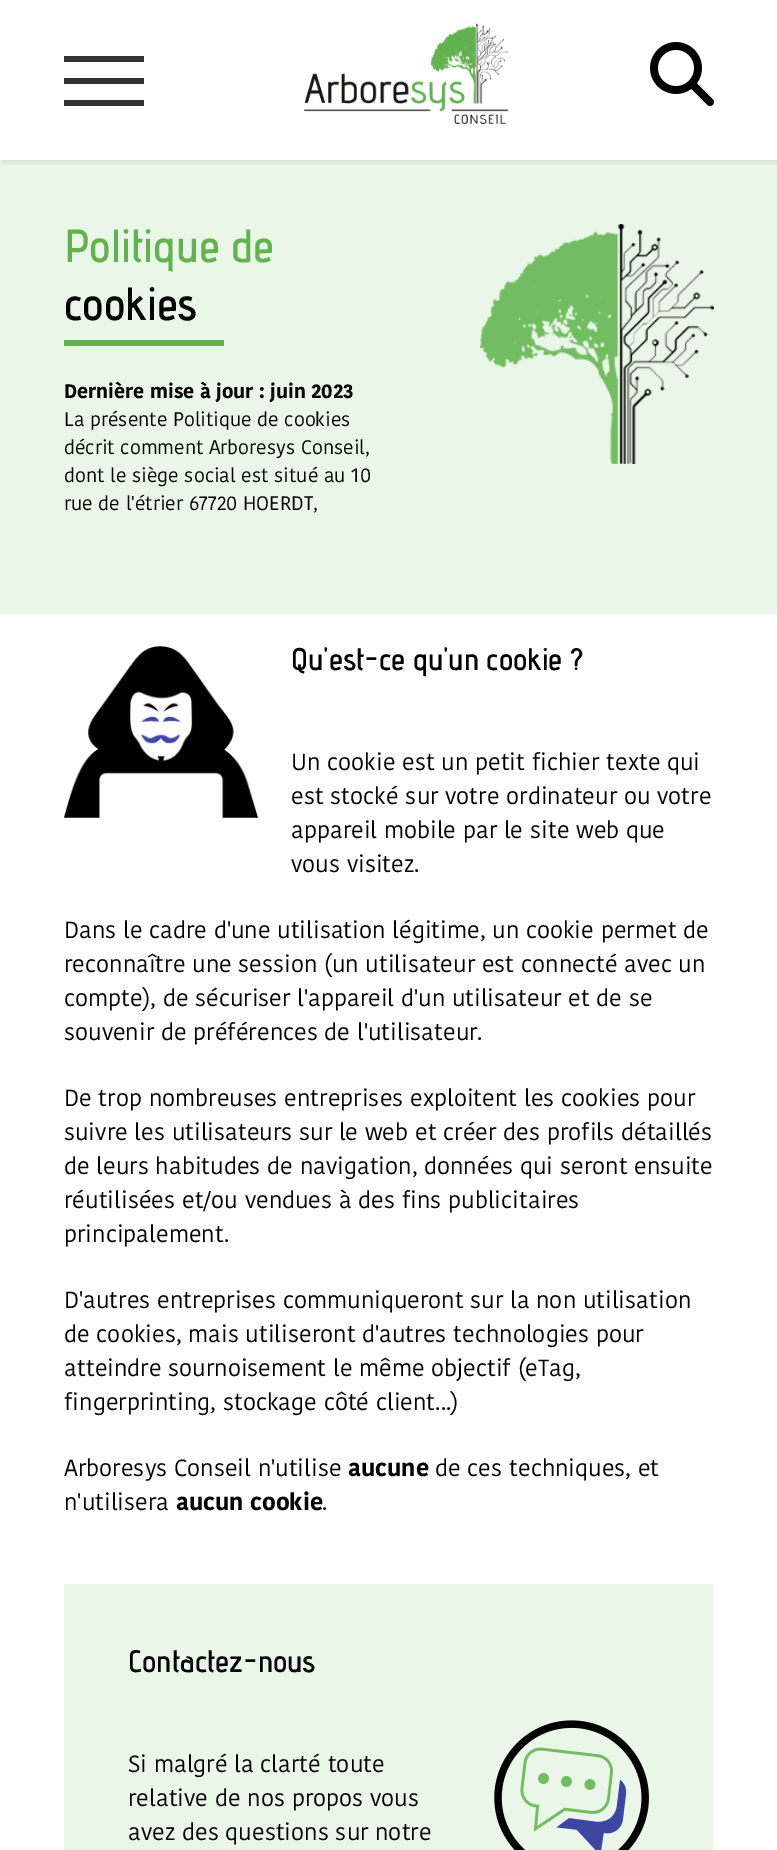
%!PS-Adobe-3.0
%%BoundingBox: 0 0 777 1850
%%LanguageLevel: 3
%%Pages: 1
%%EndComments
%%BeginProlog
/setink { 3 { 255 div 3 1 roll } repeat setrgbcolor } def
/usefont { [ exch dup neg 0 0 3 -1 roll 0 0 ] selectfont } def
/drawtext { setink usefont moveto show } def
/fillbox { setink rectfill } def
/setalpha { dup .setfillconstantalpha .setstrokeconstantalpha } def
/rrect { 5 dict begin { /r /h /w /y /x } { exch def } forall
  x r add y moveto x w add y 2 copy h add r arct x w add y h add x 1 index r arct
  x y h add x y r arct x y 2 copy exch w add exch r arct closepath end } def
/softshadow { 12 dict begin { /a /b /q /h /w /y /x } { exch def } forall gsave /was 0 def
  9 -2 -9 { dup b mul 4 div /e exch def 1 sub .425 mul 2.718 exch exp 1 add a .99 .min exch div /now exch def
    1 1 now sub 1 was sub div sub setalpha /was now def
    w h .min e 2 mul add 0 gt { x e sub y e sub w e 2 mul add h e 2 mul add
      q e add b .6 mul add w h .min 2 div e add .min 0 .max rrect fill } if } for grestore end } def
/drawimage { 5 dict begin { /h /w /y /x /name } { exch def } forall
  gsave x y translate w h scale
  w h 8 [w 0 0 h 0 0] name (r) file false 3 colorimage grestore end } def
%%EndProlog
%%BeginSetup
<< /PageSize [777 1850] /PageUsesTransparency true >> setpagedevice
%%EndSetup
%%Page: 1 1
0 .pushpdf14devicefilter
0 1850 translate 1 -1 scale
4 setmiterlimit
0 0 777 1850 255 255 255 fillbox
0 160 777 454 234 246 232 fillbox
gsave
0 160 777 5 rectclip
0 0 0 setink
2 2 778 160 0 4 0.1 softshadow
grestore
64 56 80 6 51 51 51 fillbox
64 78 80 6 51 51 51 fillbox
64 100 80 6 51 51 51 fillbox
(assets/img1.rgb) 304 23 204 101 drawimage
(assets/img2.rgb) 650 42 64 64 drawimage
(Politique de) 64 262 /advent-ExtraBold 46.5 98 179 79 drawtext
(assets/img3.rgb) 480 224 234 240 drawimage
64 340 160 6 98 179 79 fillbox
(cookies) 64 320 /advent-ExtraBold 46.5 0 0 0 drawtext
(Dernière mise à jour : juin 2023) 64 398 /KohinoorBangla-Bold 19.5 0 0 0 drawtext
(La présente Politique de cookies) 64 426 /KohinoorBangla-Regular 19.5 0 0 0 drawtext
(décrit comment Arboresys Conseil,) 64 454 /KohinoorBangla-Regular 19.5 0 0 0 drawtext
(dont le siège social est situé au 10) 64 482 /KohinoorBangla-Regular 19.5 0 0 0 drawtext
(rue de l'étrier 67720 HOERDT,) 64 510 /KohinoorBangla-Regular 19.5 0 0 0 drawtext
(assets/img4.rgb) 64 646 194 172 drawimage
(Qu'est-ce qu'un cookie ?) 291 670 /advent-ExtraBold 31.1 0 0 0 drawtext
(Un cookie est un petit fichier texte qui) 291 770 /KohinoorBangla-Regular 23.35 0 0 0 drawtext
(est stocké sur votre ordinateur ou votre) 291 804 /KohinoorBangla-Regular 23.35 0 0 0 drawtext
(appareil mobile par le site web que) 291 838 /KohinoorBangla-Regular 23.35 0 0 0 drawtext
(vous visitez.) 291 872 /KohinoorBangla-Regular 23.35 0 0 0 drawtext
(Dans le cadre d'une utilisation légitime, un cookie permet de) 64 938 /KohinoorBangla-Regular 23.35 0 0 0 drawtext
(reconnaître une session \(un utilisateur est connecté avec un) 64 972 /KohinoorBangla-Regular 23.35 0 0 0 drawtext
(compte\), de sécuriser l'appareil d'un utilisateur et de se) 64 1006 /KohinoorBangla-Regular 23.35 0 0 0 drawtext
(souvenir de préférences de l'utilisateur.) 64 1040 /KohinoorBangla-Regular 23.35 0 0 0 drawtext
(De trop nombreuses entreprises exploitent les cookies pour) 64 1106 /KohinoorBangla-Regular 23.35 0 0 0 drawtext
(suivre les utilisateurs sur le web et créer des profils détaillés) 64 1140 /KohinoorBangla-Regular 23.35 0 0 0 drawtext
(de leurs habitudes de navigation, données qui seront ensuite) 64 1174 /KohinoorBangla-Regular 23.35 0 0 0 drawtext
(réutilisées et/ou vendues à des fins publicitaires) 64 1208 /KohinoorBangla-Regular 23.35 0 0 0 drawtext
(principalement.) 64 1242 /KohinoorBangla-Regular 23.35 0 0 0 drawtext
(D'autres entreprises communiqueront sur la non utilisation) 64 1308 /KohinoorBangla-Regular 23.35 0 0 0 drawtext
(de cookies, mais utiliseront d'autres technologies pour) 64 1342 /KohinoorBangla-Regular 23.35 0 0 0 drawtext
(atteindre sournoisement le même objectif \(eTag,) 64 1376 /KohinoorBangla-Regular 23.35 0 0 0 drawtext
(fingerprinting, stockage côté client...\)) 64 1410 /KohinoorBangla-Regular 23.35 0 0 0 drawtext
(Arboresys Conseil n'utilise) 64 1476 /KohinoorBangla-Regular 23.35 0 0 0 drawtext
(aucune) 348 1476 /KohinoorBangla-Bold 23.35 0 0 0 drawtext
(de ces techniques, et) 435 1476 /KohinoorBangla-Regular 23.35 0 0 0 drawtext
(n'utilisera) 64 1510 /KohinoorBangla-Regular 23.35 0 0 0 drawtext
(aucun cookie) 176 1510 /KohinoorBangla-Bold 23.35 0 0 0 drawtext
(.) 322 1510 /KohinoorBangla-Regular 23.35 0 0 0 drawtext
64 1584 650 266 234 246 232 fillbox
(Contactez-nous) 128 1672 /advent-ExtraBold 31.1 0 0 0 drawtext
(Si malgré la clarté toute) 128 1772 /KohinoorBangla-Regular 23.35 0 0 0 drawtext
(relative de nos propos vous) 128 1806 /KohinoorBangla-Regular 23.35 0 0 0 drawtext
(avez des questions sur notre) 128 1840 /KohinoorBangla-Regular 23.35 0 0 0 drawtext
(assets/img5.rgb) 494 1720 155 130 drawimage
.poppdf14devicefilter showpage
%%EOF
